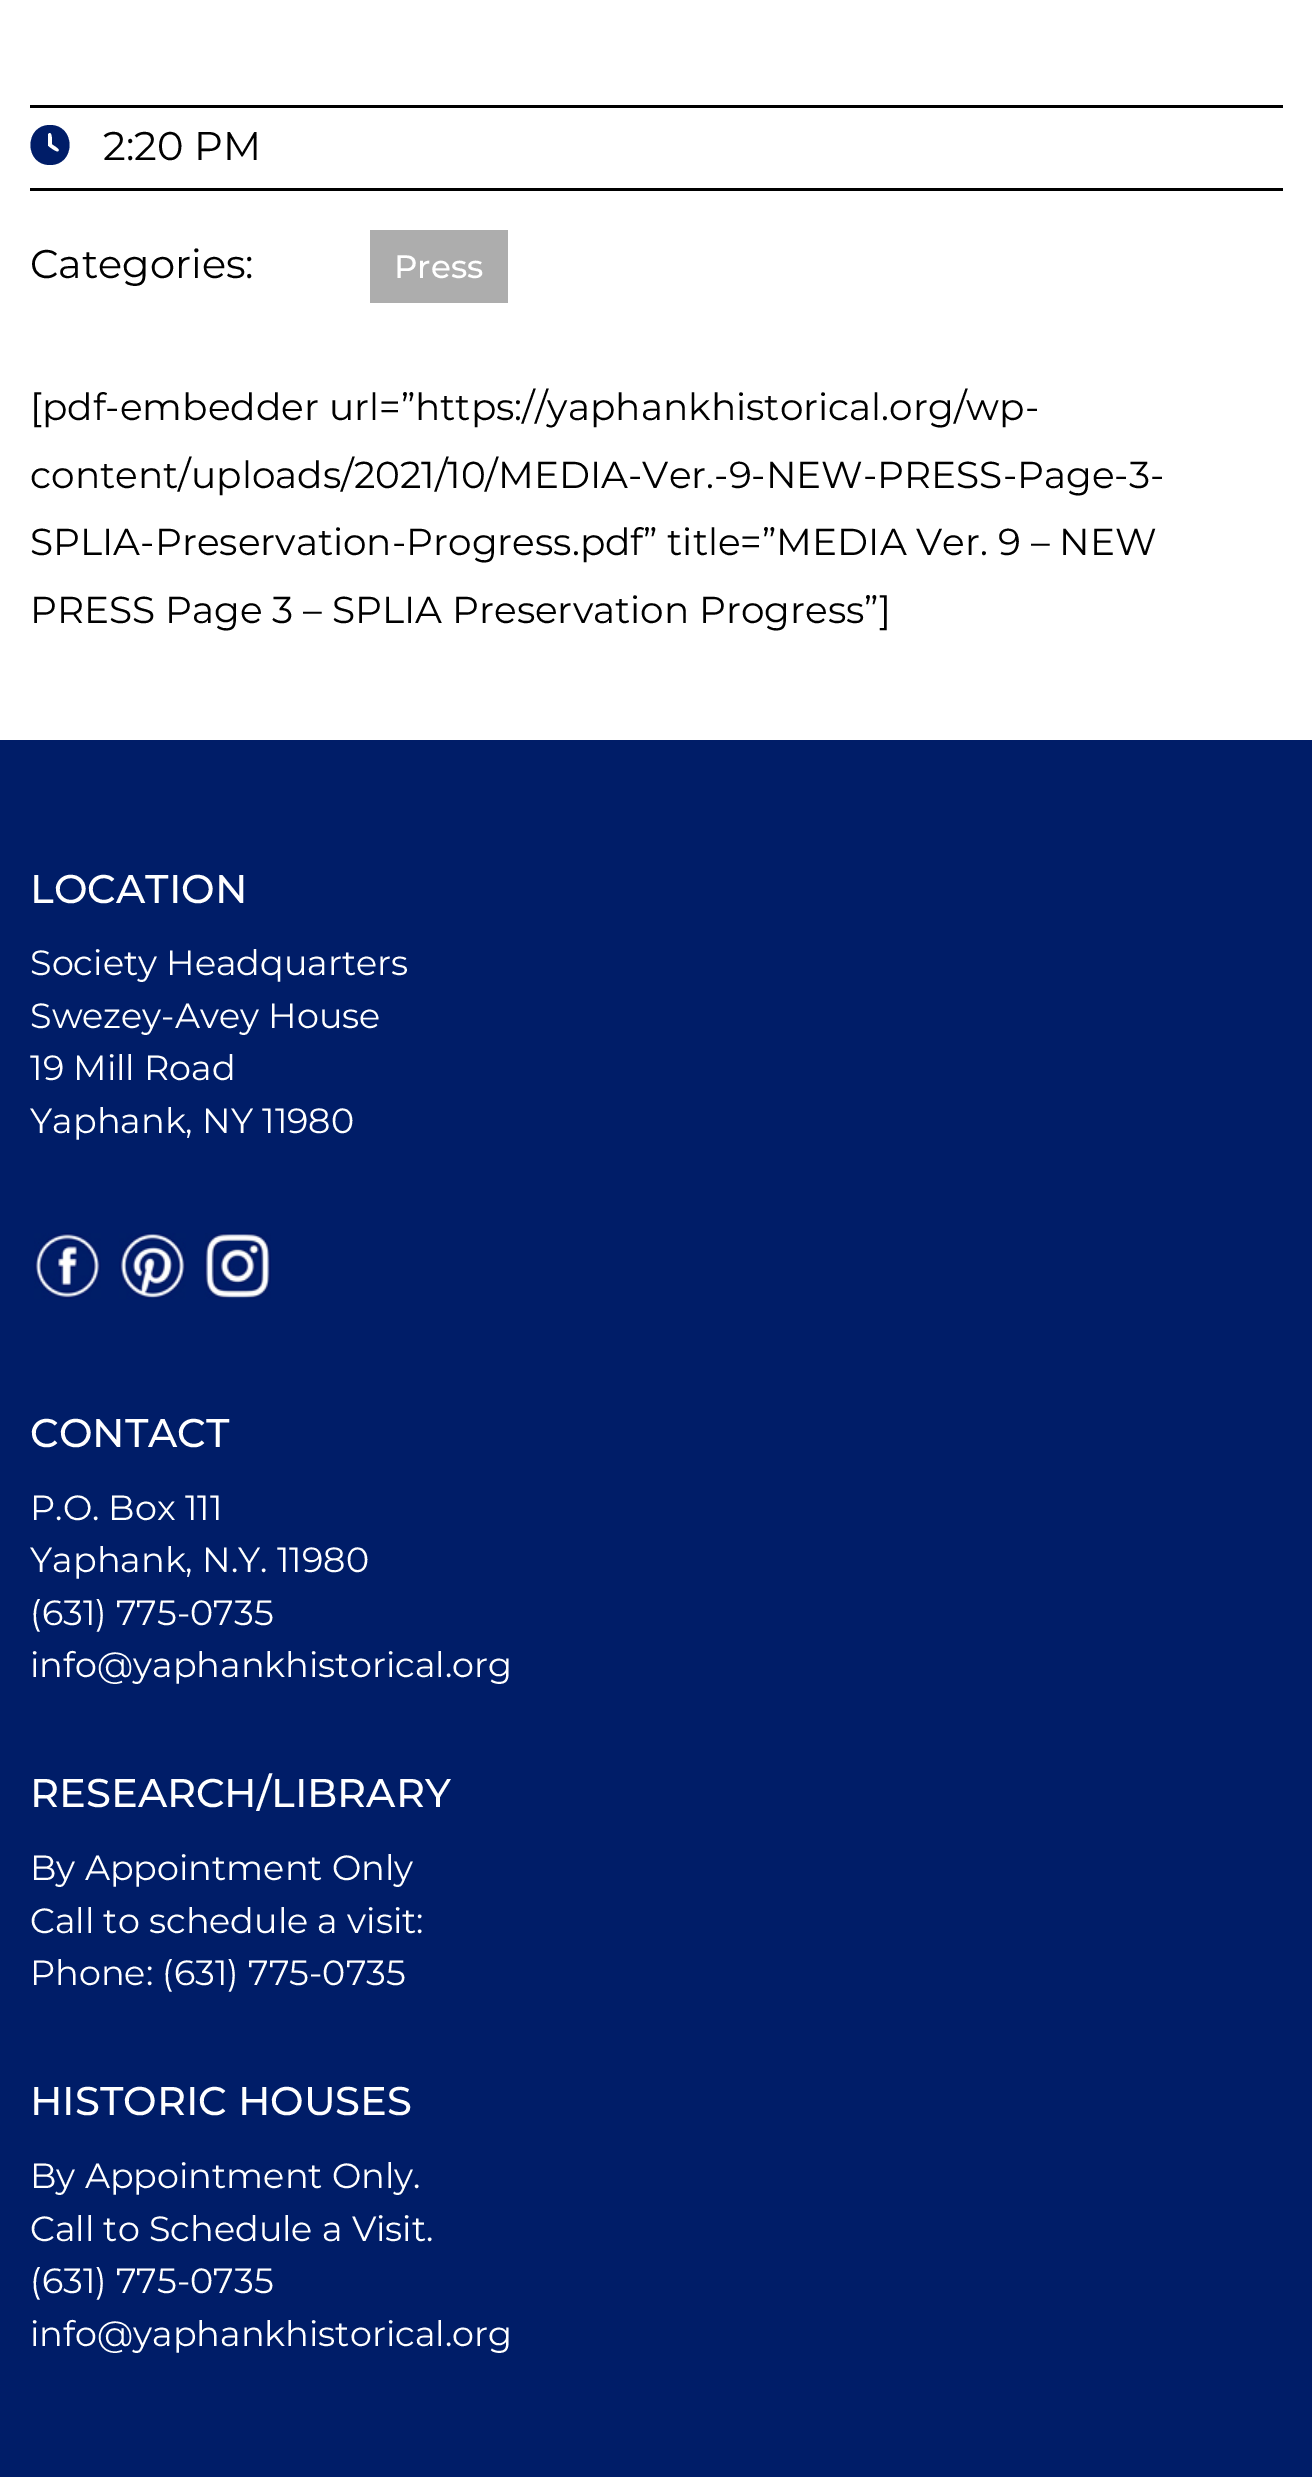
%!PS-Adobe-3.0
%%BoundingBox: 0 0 1312 2477
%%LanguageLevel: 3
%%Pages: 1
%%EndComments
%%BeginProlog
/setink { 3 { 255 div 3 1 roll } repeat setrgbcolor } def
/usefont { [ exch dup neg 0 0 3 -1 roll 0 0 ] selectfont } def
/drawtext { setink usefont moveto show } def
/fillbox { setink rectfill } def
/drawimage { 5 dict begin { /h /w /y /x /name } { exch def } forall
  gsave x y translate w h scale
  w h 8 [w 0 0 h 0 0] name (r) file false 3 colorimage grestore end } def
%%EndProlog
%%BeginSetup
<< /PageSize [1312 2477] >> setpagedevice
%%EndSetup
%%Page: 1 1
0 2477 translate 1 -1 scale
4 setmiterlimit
0 0 1312 2477 255 255 255 fillbox
30 105 1253 3 0 0 0 fillbox
30 188 1253 3 0 0 0 fillbox
0 29 104 setink
50 125 moveto 76 125 76 165 50 165 curveto 24 165 24 125 50 125 curveto closepath 48 134 moveto 48 146 lineto 49 147 59 155 59 150 curveto 59 148 53 145 52 144 curveto 52 142 53 131 49 133 curveto closepath fill
(2:20 PM) 103 160 /Montserrat-Regular 40 0 0 0 drawtext
(Categories:) 30 278 /Montserrat-Regular 40 0 0 0 drawtext
370 230 138 73 173 173 173 fillbox
(Press) 394 278 /Montserrat-Medium 32.5 255 255 255 drawtext
([pdf-embedder url=”https://yaphankhistorical.org/wp-) 30 420 /Montserrat-Regular 37.5 0 0 0 drawtext
(content/uploads/2021/10/MEDIA-Ver.-9-NEW-PRESS-Page-3-) 30 488 /Montserrat-Regular 37.5 0 0 0 drawtext
(SPLIA-Preservation-Progress.pdf” title=”MEDIA Ver. 9 – NEW) 30 555 /Montserrat-Regular 37.5 0 0 0 drawtext
(PRESS Page 3 – SPLIA Preservation Progress”]) 30 623 /Montserrat-Regular 37.5 0 0 0 drawtext
0 740 1312 1737 0 29 104 fillbox
(LOCATION) 30 903 /Montserrat-Medium 40 255 255 255 drawtext
(Society Headquarters) 30 975 /Montserrat-Regular 35 255 255 255 drawtext
(Swezey-Avey House) 30 1028 /Montserrat-Regular 35 255 255 255 drawtext
(19 Mill Road) 30 1080 /Montserrat-Regular 35 255 255 255 drawtext
(Yaphank, NY 11980) 30 1133 /Montserrat-Regular 35 255 255 255 drawtext
(assets/img1.rgb) 34 1233 67 66 drawimage
(assets/img2.rgb) 119 1233 67 66 drawimage
(assets/img3.rgb) 204 1233 67 66 drawimage
(CONTACT) 30 1447 /Montserrat-Medium 40 255 255 255 drawtext
(P.O. Box 111) 30 1520 /Montserrat-Regular 35 255 255 255 drawtext
(Yaphank, N.Y. 11980) 30 1572 /Montserrat-Regular 35 255 255 255 drawtext
(\(631\) 775-0735) 30 1625 /Montserrat-Regular 35 255 255 255 drawtext
(info@yaphankhistorical.org) 30 1677 /Montserrat-Regular 35 255 255 255 drawtext
(RESEARCH/LIBRARY) 30 1807 /Montserrat-Medium 40 255 255 255 drawtext
(By Appointment Only) 30 1880 /Montserrat-Regular 35 255 255 255 drawtext
(Call to schedule a visit:) 30 1933 /Montserrat-Regular 35 255 255 255 drawtext
(Phone: \(631\) 775-0735) 30 1985 /Montserrat-Regular 35 255 255 255 drawtext
(HISTORIC HOUSES) 30 2115 /Montserrat-Medium 40 255 255 255 drawtext
(By Appointment Only.) 30 2188 /Montserrat-Regular 35 255 255 255 drawtext
(Call to Schedule a Visit.) 30 2241 /Montserrat-Regular 35 255 255 255 drawtext
(\(631\) 775-0735) 30 2293 /Montserrat-Regular 35 255 255 255 drawtext
(info@yaphankhistorical.org) 30 2346 /Montserrat-Regular 35 255 255 255 drawtext
showpage
%%EOF
